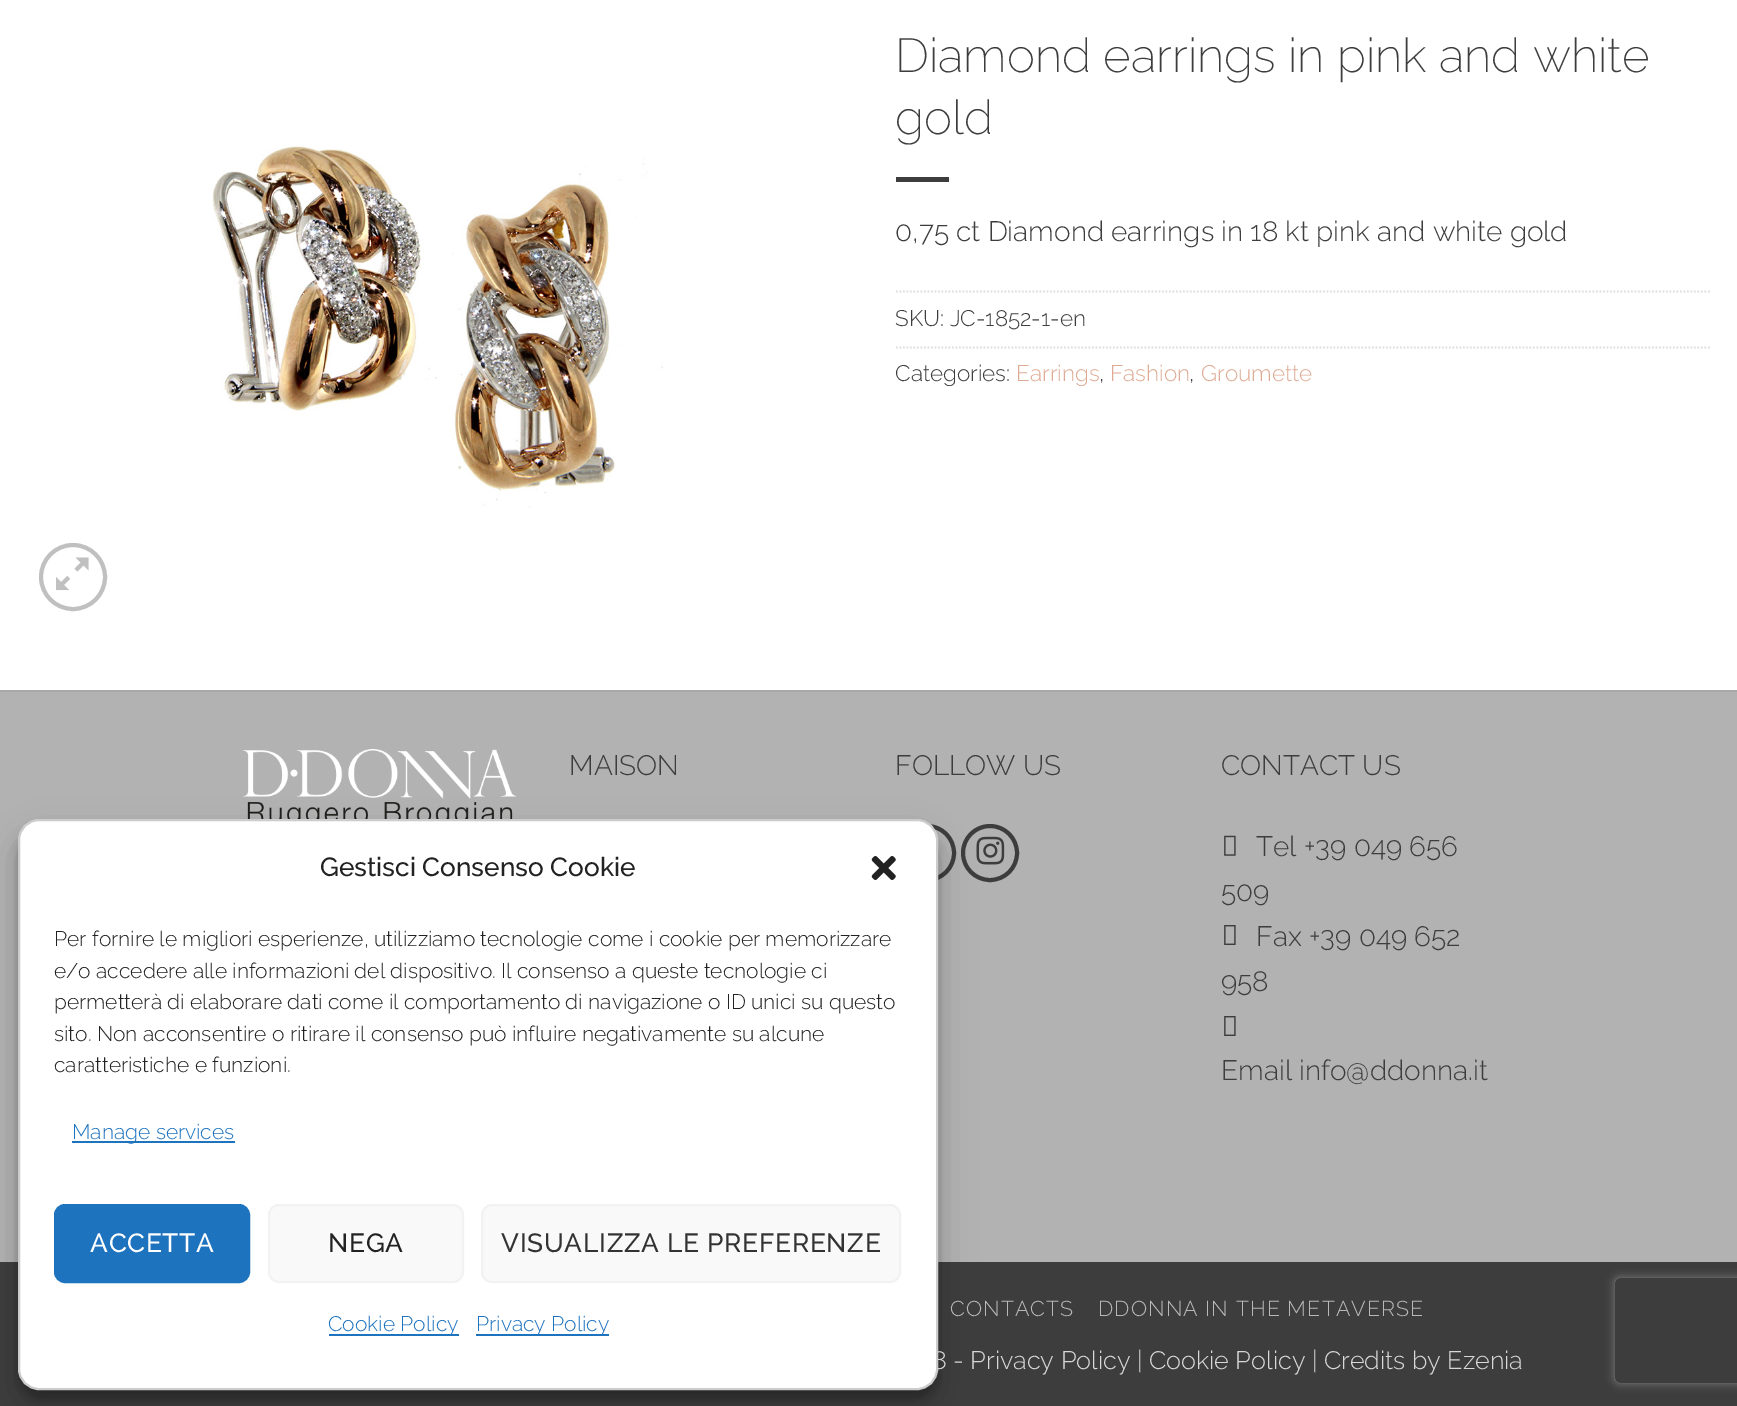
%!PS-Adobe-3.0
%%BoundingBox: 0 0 1737 1406
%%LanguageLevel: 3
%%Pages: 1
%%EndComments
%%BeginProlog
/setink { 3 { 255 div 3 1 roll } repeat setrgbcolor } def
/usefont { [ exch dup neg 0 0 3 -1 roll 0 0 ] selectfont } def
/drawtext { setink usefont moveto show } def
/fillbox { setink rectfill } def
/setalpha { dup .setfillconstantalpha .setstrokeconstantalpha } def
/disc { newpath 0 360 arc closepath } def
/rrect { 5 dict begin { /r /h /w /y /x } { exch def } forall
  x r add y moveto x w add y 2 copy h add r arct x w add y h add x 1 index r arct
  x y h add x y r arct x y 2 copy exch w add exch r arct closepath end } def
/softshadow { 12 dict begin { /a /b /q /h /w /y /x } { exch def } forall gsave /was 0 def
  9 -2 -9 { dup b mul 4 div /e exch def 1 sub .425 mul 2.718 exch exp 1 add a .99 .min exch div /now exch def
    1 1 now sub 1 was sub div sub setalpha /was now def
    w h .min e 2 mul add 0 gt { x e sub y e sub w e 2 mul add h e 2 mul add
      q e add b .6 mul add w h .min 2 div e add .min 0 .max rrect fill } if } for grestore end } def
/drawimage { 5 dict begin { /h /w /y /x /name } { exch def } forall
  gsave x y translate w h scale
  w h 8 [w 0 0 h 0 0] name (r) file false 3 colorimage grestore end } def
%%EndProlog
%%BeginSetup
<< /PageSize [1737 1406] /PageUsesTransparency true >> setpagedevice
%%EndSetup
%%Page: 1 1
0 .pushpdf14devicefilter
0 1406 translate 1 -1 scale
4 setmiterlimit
0 0 1737 1406 255 255 255 fillbox
0 692 1737 570 178 178 178 fillbox
(assets/img4.rgb) 243 749 274 70 drawimage
61 61 61 setink
4 setlinewidth
927 853 27 disc stroke
0 1262 1737 144 61 61 61 fillbox
0 0 0 setink
18 830 920 570 21 5 0.23 softshadow
61 61 61 setink
990 853 27 disc stroke
(assets/img5.rgb) 976 836 29 29 drawimage
0 0 0 setink
18 837 920 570 21 17.5 0.19 softshadow
(8 - Privacy Policy | Cookie Policy | Credits by Ezenia) 932 1369 /Raleway-Light 25.2 216 216 216 drawtext
255 255 255 setink
19 820 918 569 20 rrect gsave fill grestore
204 204 204 setink
2 setlinewidth
stroke
(Gestisci Consenso Cookie) 320 876 /Raleway-Medium 26.25 34 34 34 drawtext
(assets/img1.rgb) 871 856 25 24 drawimage
(Per fornire le migliori esperienze, utilizziamo tecnologie come i cookie per memorizzare) 54 946 /Raleway-Light 21 34 34 34 drawtext
(e/o accedere alle informazioni del dispositivo. Il consenso a queste tecnologie ci) 54 978 /Raleway-Light 21 34 34 34 drawtext
(permetterà di elaborare dati come il comportamento di navigazione o ID unici su questo) 54 1009 /Raleway-Light 21 34 34 34 drawtext
(sito. Non acconsentire o ritirare il consenso può influire negativamente su alcune) 54 1041 /Raleway-Light 21 34 34 34 drawtext
(caratteristiche e funzioni.) 54 1072 /Raleway-Light 21 34 34 34 drawtext
72 1141 163 2 30 115 190 fillbox
(Manage services) 72 1139 /Raleway-Light 21 30 115 190 drawtext
55 1205 194 77 10 rrect gsave fill grestore
stroke
/Raleway-Medium 26.25 usefont
255 255 255 setink
90 1252 moveto 0.75 0 (ACCETTA) ashow
249 249 249 setink
269 1205 194 77 10 rrect gsave fill grestore
242 242 242 setink
stroke
34 34 34 setink
328 1252 moveto 0.75 0 (NEGA) ashow
249 249 249 setink
482 1205 418 77 10 rrect gsave fill grestore
242 242 242 setink
stroke
51 51 51 setink
501 1252 moveto 0.75 0 (VISUALIZZA LE PREFERENZE) ashow
329 1334 130 2 30 115 190 fillbox
(Cookie Policy) 328 1331 /Raleway-Light 21 30 115 190 drawtext
476 1334 133 2 30 115 190 fillbox
(Privacy Policy) 476 1331 /Raleway-Light 21 30 115 190 drawtext
(assets/img2.rgb) 212 143 452 365 drawimage
192 192 192 setink
4 setlinewidth
73 577 32 disc stroke
(assets/img3.rgb) 56 557 33 34 drawimage
(Diamond earrings in pink and white) 895 72 /Raleway-ExtraLight 47.6 61 61 61 drawtext
(gold) 895 134 /Raleway-ExtraLight 47.6 61 61 61 drawtext
896 177 53 5 61 61 61 fillbox
(0,75 ct Diamond earrings in 18 kt pink and white gold) 895 241 /Raleway-Light 28 61 61 61 drawtext
221 221 221 setink
1.8 setlinewidth
[1.75 1.75] 0 setdash
896 291.5 moveto 1711.5 291.5 lineto stroke
(SKU: JC-1852-1-en) 895 326 /Raleway-Light 22.5 61 61 61 drawtext
221 221 221 setink
896 347.5 moveto 1711.5 347.5 lineto stroke
(Categories:) 895 381 /Raleway-Light 22.5 61 61 61 drawtext
(Earrings) 1016 381 /Raleway-Light 22.5 222 170 147 drawtext
(,) 1099 381 /Raleway-Light 22.5 61 61 61 drawtext
(Fashion) 1110 381 /Raleway-Light 22.5 222 170 147 drawtext
(,) 1189 381 /Raleway-Light 22.5 61 61 61 drawtext
(Groumette) 1201 381 /Raleway-Light 22.5 222 170 147 drawtext
0 690 1737 2 169 169 169 fillbox
(MAISON) 569 775 /Raleway-Light 28 61 61 61 drawtext
(FOLLOW US) 895 775 /Raleway-Light 28 61 61 61 drawtext
(CONTACT US) 1221 775 /Raleway-Light 28 61 61 61 drawtext
(assets/img6.rgb) 1224 835 12 21 drawimage
(Tel +39 049 656) 1256 856 /Raleway-Light 28 61 61 61 drawtext
(509) 1221 901 /Raleway-Light 28 61 61 61 drawtext
(assets/img7.rgb) 1224 925 12 20 drawimage
(Fax +39 049 652) 1256 946 /Raleway-Light 28 61 61 61 drawtext
(958) 1221 991 /Raleway-Light 28 61 61 61 drawtext
(assets/img7.rgb) 1224 1016 12 20 drawimage
(Email info@ddonna.it) 1221 1080 /Raleway-Light 28 61 61 61 drawtext
/Raleway-Light 21.4 usefont
185 185 185 setink
950 1316 moveto 1.1 0 (CONTACTS) ashow
1098 1316 moveto 1.1 0 (DDONNA IN THE METAVERSE) ashow
gsave
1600 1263 moveto 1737 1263 lineto 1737 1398 lineto 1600 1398 lineto closepath 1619 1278 moveto 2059 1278 lineto 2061 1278 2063 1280 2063 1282 curveto 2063 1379 lineto 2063 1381 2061 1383 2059 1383 curveto 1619 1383 lineto 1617 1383 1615 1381 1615 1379 curveto 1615 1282 lineto 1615 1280 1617 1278 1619 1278 curveto closepath eoclip newpath
128 128 128 setink
1615 1278 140 105 4 4.5 1 softshadow
grestore
.poppdf14devicefilter showpage
%%EOF
